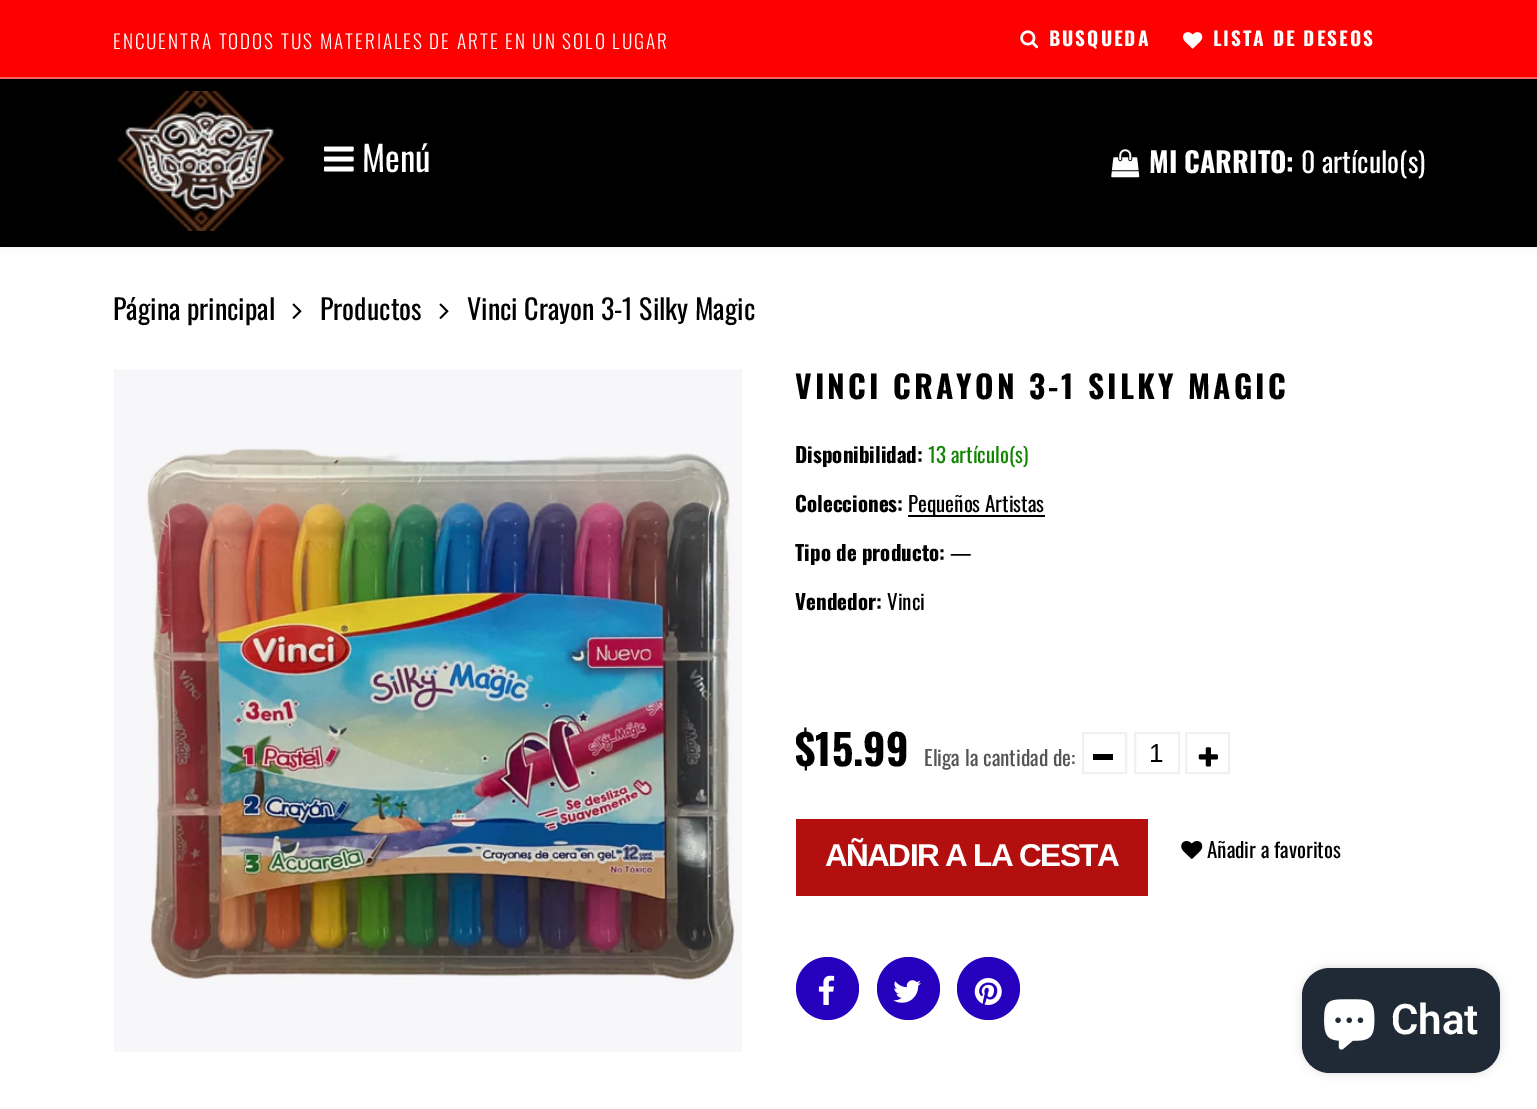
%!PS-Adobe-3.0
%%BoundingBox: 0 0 1537 1109
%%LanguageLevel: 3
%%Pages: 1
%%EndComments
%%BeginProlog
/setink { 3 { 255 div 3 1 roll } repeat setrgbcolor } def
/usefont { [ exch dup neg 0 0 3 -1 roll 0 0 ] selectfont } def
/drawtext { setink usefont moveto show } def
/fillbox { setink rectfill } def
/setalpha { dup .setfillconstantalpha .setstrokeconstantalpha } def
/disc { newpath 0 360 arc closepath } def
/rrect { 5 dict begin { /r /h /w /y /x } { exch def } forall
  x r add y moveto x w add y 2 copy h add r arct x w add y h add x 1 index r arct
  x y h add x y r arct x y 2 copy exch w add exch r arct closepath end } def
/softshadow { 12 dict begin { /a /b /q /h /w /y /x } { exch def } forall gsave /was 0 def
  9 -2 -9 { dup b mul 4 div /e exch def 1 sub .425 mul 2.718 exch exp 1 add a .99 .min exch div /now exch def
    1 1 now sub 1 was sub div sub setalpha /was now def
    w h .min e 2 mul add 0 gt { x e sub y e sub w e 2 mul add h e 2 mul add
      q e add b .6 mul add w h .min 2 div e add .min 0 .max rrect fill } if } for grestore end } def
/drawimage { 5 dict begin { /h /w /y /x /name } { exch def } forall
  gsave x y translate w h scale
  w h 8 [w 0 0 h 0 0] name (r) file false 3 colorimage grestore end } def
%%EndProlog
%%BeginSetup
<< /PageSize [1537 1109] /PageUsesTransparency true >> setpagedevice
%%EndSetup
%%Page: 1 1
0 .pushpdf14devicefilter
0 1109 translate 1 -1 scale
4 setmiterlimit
0 0 1537 1109 255 255 255 fillbox
0 0 0 setink
0 0 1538 247 0 4.5 0.05 softshadow
0 0 1537 77 255 0 0 fillbox
0 77 1537 2 250 96 96 fillbox
/Oswald-Light 19.25 usefont
255 255 255 setink
113 49 moveto 1.93 0 (ENCUENTRA TODOS TUS MATERIALES DE ARTE EN UN SOLO LUGAR) ashow
(assets/img1.rgb) 1020 30 19 19 drawimage
/Oswald-Bold 19.25 usefont
1049 46 moveto 1.93 0 (BUSQUEDA) ashow
(assets/img2.rgb) 1183 32 20 17 drawimage
1213 46 moveto 1.93 0 (LISTA DE DESEOS) ashow
0 79 1537 168 0 0 0 fillbox
(assets/img3.rgb) 114 91 173 140 drawimage
(assets/img4.rgb) 324 146 30 26 drawimage
(Menú) 362 172 /Oswald-Regular 35 255 255 255 drawtext
(assets/img5.rgb) 1111 149 29 29 drawimage
(MI CARRITO:) 1149 173 /Oswald-Bold 28 255 255 255 drawtext
(0 artículo\(s\)) 1301 173 /Oswald-Regular 28 255 255 255 drawtext
(Página principal) 113 320 /Oswald-Regular 28 0 0 0 drawtext
(assets/img6.rgb) 292 303 10 16 drawimage
(Productos) 320 320 /Oswald-Regular 28 0 0 0 drawtext
(assets/img6.rgb) 439 303 10 16 drawimage
(Vinci Crayon 3-1 Silky Magic) 467 320 /Oswald-Regular 28 0 0 0 drawtext
(assets/img7.rgb) 114 369 628 683 drawimage
/Oswald-Bold 31.5 usefont
795 399 moveto 3.15 0 (VINCI CRAYON 3-1 SILKY MAGIC) ashow
(Disponibilidad:) 795 463 /Oswald-Bold 21 0 0 0 drawtext
(13 artículo\(s\)) 928 463 /Oswald-Regular 21 17 133 2 drawtext
(Colecciones:) 795 512 /Oswald-Bold 21 0 0 0 drawtext
908 515 137 2 0 0 0 fillbox
(Pequeños Artistas) 908 512 /Oswald-Regular 21 0 0 0 drawtext
(Tipo de producto:) 795 561 /Oswald-Bold 21 0 0 0 drawtext
(—) 950 561 /Oswald-Regular 21 0 0 0 drawtext
(Vendedor:) 795 610 /Oswald-Bold 21 0 0 0 drawtext
(Vinci) 887 610 /Oswald-Regular 21 0 0 0 drawtext
($15.99) 795 766 /Oswald-Bold 42 0 0 0 drawtext
(Eliga la cantidad de:) 924 766 /Oswald-Regular 21 85 85 85 drawtext
242 239 239 setink
2 setlinewidth
1083 733 43 40 rectstroke
1093 754 20 6 0 0 0 fillbox
242 239 239 setink
1135 733 44 40 rectstroke
(1) 1149 762 /LiberationSans-Regular 26 0 0 0 drawtext
242 239 239 setink
1186 733 43 40 rectstroke
(assets/img8.rgb) 1198 747 20 20 drawimage
796 819 352 77 180 15 15 fillbox
/LiberationSans-Bold 31.5 usefont
255 255 255 setink
825 866 moveto -1.6 0 (AÑADIR A LA CESTA) ashow
(assets/img9.rgb) 1181 841 22 18 drawimage
(Añadir a favoritos) 1207 858 /Oswald-Regular 21 0 0 0 drawtext
39 0 189 setink
827.5 988.5 31.5 disc fill
(assets/img10.rgb) 818 975 17 30 drawimage
908.5 988.5 31.5 disc fill
(assets/img11.rgb) 893 980 28 23 drawimage
988.5 988.5 31.5 disc fill
(assets/img12.rgb) 974 978 28 27 drawimage
0 0 0 setink
1302 968 198 105 28 4.5 0.15 softshadow
32 42 54 setink
1302 968 198 105 28 rrect fill
(assets/img13.rgb) 1324 999 51 51 drawimage
(Chat) 1391 1034 /Roboto-SemiBold 42 255 255 255 drawtext
.poppdf14devicefilter showpage
%%EOF
